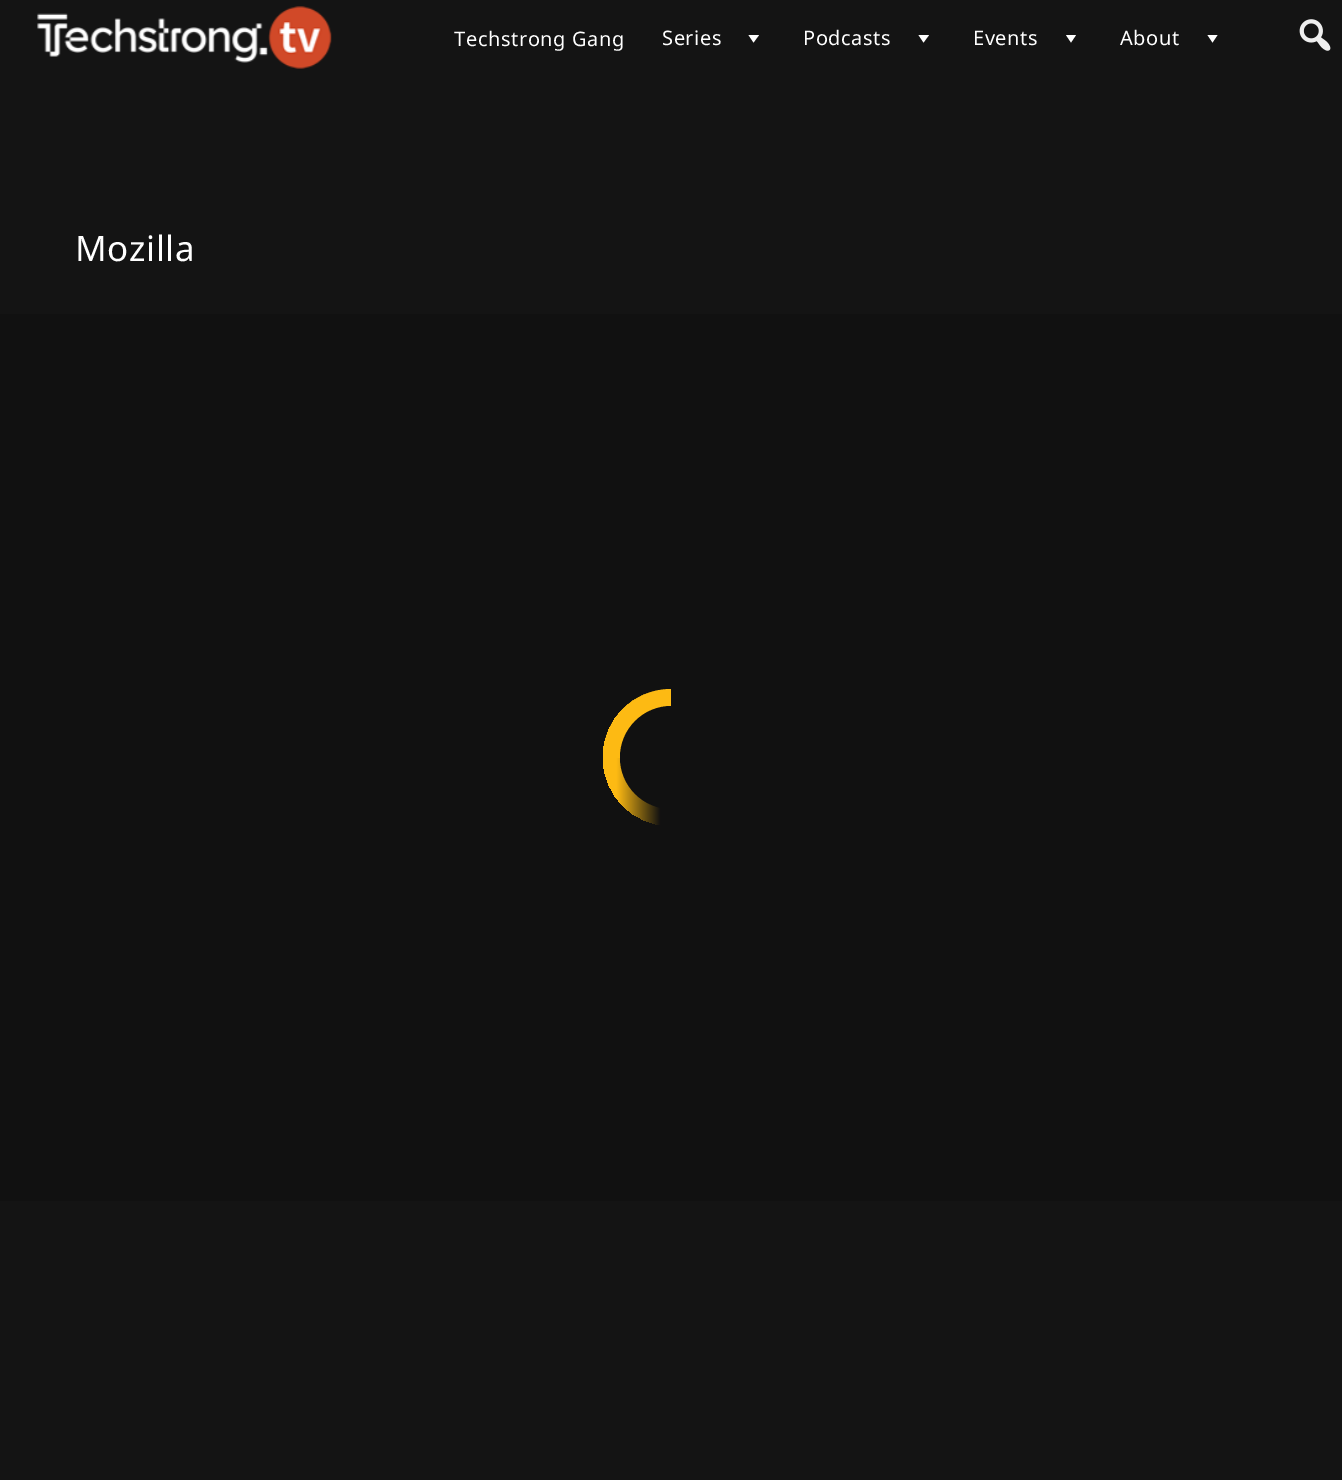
%!PS-Adobe-3.0
%%BoundingBox: 0 0 1342 1480
%%LanguageLevel: 3
%%Pages: 1
%%EndComments
%%BeginProlog
/setink { 3 { 255 div 3 1 roll } repeat setrgbcolor } def
/usefont { [ exch dup neg 0 0 3 -1 roll 0 0 ] selectfont } def
/fillbox { setink rectfill } def
/disc { newpath 0 360 arc closepath } def
/drawimage { 5 dict begin { /h /w /y /x /name } { exch def } forall
  gsave x y translate w h scale
  w h 8 [w 0 0 h 0 0] name (r) file false 3 colorimage grestore end } def
%%EndProlog
%%BeginSetup
<< /PageSize [1342 1480] >> setpagedevice
%%EndSetup
%%Page: 1 1
0 1480 translate 1 -1 scale
4 setmiterlimit
0 0 1342 1480 20 20 20 fillbox
(assets/img1.rgb) 37 6 295 63 drawimage
/NotoSans-Regular 20 usefont
255 255 255 setink
454 46 moveto 0.6 0 (Techstrong Gang) ashow
662 45 moveto 0.6 0 (Series) ashow
759 35 moveto 753.5 42.5 lineto 748.5 35 lineto closepath fill
803 45 moveto 0.6 0 (Podcasts) ashow
929 35 moveto 923.5 42.5 lineto 918.5 35 lineto closepath fill
973 45 moveto 0.6 0 (Events) ashow
1076 35 moveto 1071 42.5 lineto 1066 35 lineto closepath fill
1120 45 moveto 0.6 0 (About) ashow
1217.5 35 moveto 1212.5 42.5 lineto 1207.5 35 lineto closepath fill
(assets/img2.rgb) 1299 19 32 32 drawimage
/NotoSans-Regular 35 usefont
75 261 moveto 0.6 0 (Mozilla) ashow
0 314 1342 887 17 17 17 fillbox
gsave 671.5 757.5 68.5 disc clip newpath
<< /ShadingType 2 /ColorSpace /DeviceRGB /Coords [603 758 740 758] /Extend [true true] /Function << /FunctionType 3 /Domain [0 1] /Functions [<< /FunctionType 2 /Domain [0 1] /C0 [0.992 0.729 0.075] /C1 [0.992 0.729 0.075] /N 1 >> << /FunctionType 2 /Domain [0 1] /C0 [0.992 0.729 0.075] /C1 [0.067 0.067 0.067] /N 1 >> << /FunctionType 2 /Domain [0 1] /C0 [0.067 0.067 0.067] /C1 [0.067 0.067 0.067] /N 1 >>] /Bounds [0.1 0.42] /Encode [0 1 0 1 0 1] >> >> shfill grestore
253 186 19 setink
671 689 moveto 671 758 lineto 603 758 lineto 603 757 lineto 603 719.5 633.5 689 671 689 curveto closepath fill
17 17 17 setink
671.5 757.5 51.5 disc fill
showpage
%%EOF
